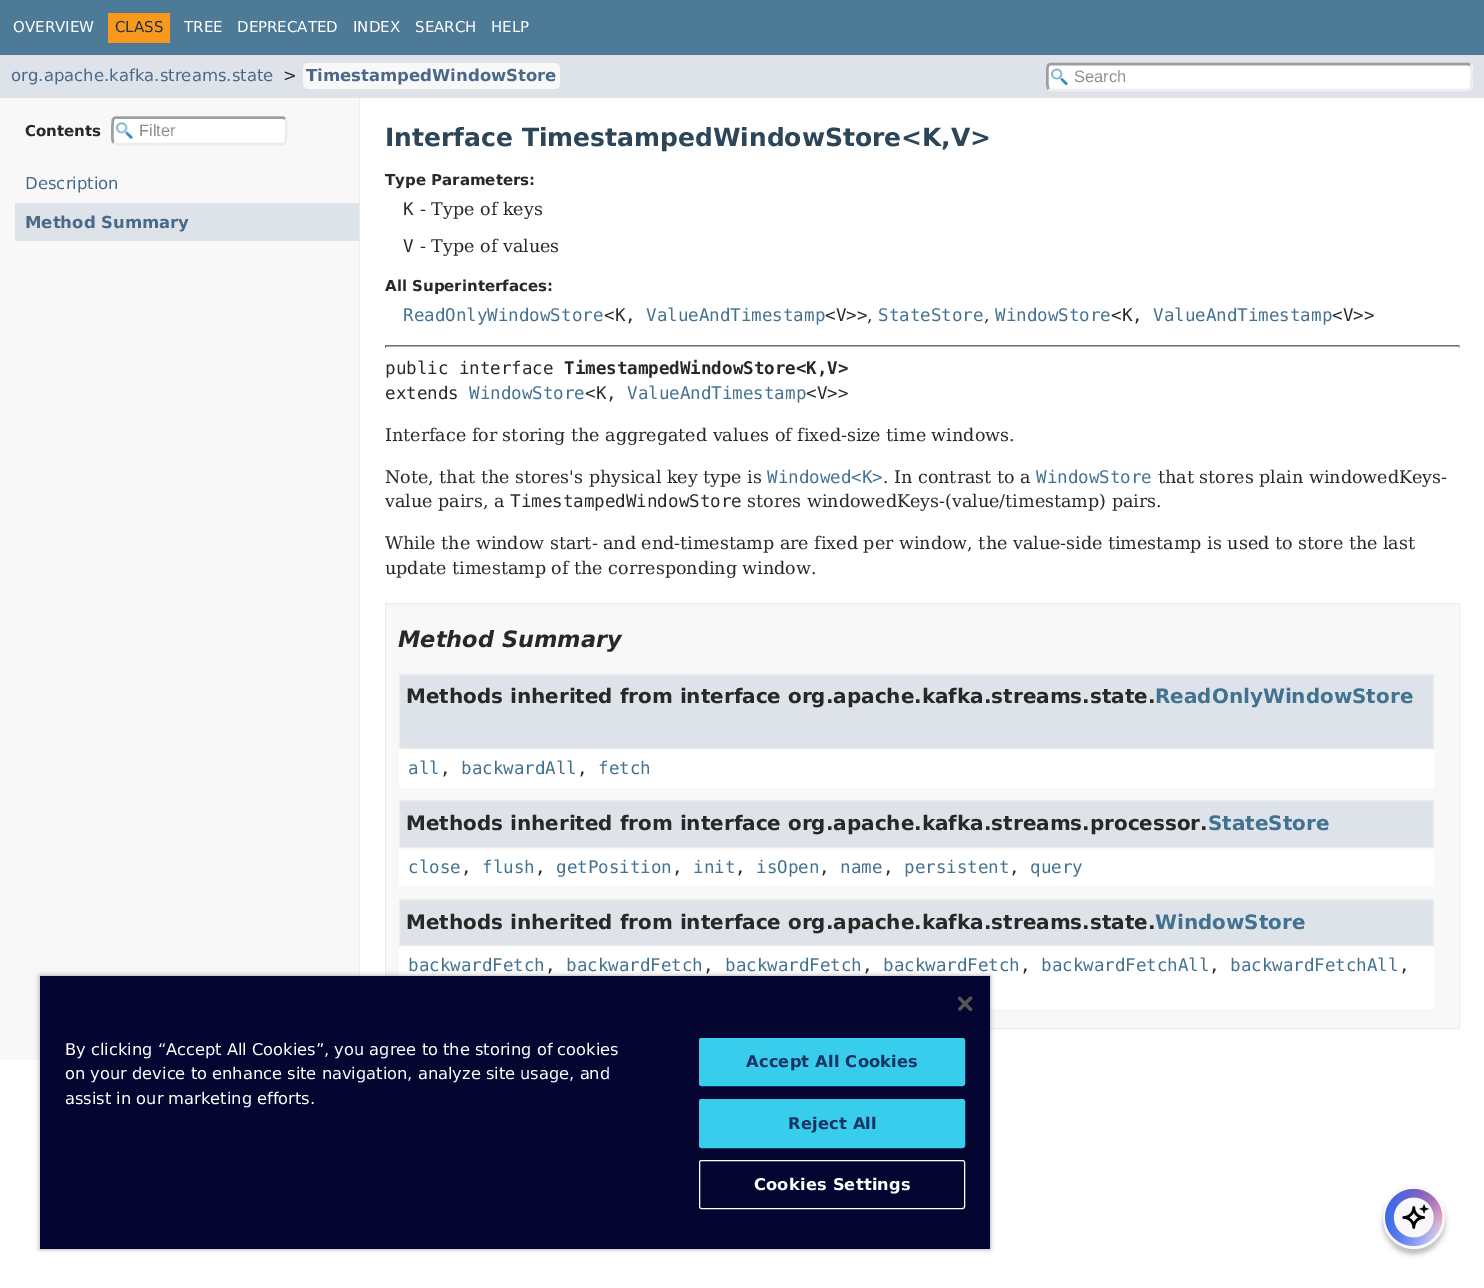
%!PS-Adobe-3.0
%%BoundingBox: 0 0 1484 1288
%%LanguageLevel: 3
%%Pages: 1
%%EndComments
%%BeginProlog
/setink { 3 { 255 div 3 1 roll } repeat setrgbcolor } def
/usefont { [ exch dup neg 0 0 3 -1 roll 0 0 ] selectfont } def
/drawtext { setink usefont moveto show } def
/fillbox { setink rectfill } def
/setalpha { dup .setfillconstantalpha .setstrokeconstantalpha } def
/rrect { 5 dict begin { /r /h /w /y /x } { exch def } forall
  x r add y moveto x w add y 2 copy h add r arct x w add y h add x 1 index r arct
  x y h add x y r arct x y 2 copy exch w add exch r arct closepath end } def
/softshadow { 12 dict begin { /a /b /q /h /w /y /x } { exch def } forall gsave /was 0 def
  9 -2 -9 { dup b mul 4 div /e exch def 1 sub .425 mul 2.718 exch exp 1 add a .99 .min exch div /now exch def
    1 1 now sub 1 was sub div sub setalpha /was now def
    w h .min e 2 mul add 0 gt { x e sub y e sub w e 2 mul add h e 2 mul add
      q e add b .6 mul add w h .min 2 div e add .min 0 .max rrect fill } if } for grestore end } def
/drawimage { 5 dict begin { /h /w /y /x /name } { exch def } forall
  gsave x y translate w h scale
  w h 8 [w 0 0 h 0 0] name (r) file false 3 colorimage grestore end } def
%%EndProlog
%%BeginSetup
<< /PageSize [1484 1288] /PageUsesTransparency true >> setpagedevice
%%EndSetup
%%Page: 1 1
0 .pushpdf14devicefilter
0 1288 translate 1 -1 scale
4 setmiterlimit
0 0 1484 1288 255 255 255 fillbox
0 0 1484 55 77 122 151 fillbox
(OVERVIEW) 13 32 /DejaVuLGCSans-Regular 15 255 255 255 drawtext
108 13 62 30 248 152 29 fillbox
(CLASS) 115 32 /DejaVuLGCSans-Regular 15 37 52 65 drawtext
(TREE) 184 32 /DejaVuLGCSans-Regular 15 255 255 255 drawtext
(DEPRECATED) 237 32 /DejaVuLGCSans-Regular 15 255 255 255 drawtext
(INDEX) 353 32 /DejaVuLGCSans-Regular 15 255 255 255 drawtext
(SEARCH) 415 32 /DejaVuLGCSans-Regular 15 255 255 255 drawtext
(HELP) 491 32 /DejaVuLGCSans-Regular 15 255 255 255 drawtext
0 55 1484 43 222 227 233 fillbox
(org.apache.kafka.streams.state) 11 81 /DejaVuLGCSans-Regular 16.5 74 105 138 drawtext
(>) 283 81 /DejaVuLGCSans-Regular 16.5 40 40 40 drawtext
248 248 248 setink
303 63 257 26 5 rrect fill
(TimestampedWindowStore) 306 81 /DejaVuLGCSans-Bold 16.5 74 105 138 drawtext
255 255 255 setink
1046 63 427 28 5 rrect fill
(assets/img1.rgb) 1051 68 17 17 drawimage
237 237 237 setink
2.5 setlinewidth
1470 65 moveto 1472.5 67 1471.5 82.5 1471 86 curveto 1471 88.5 1469.5 90 1467.5 90 curveto 1051 90 lineto 1048.5 89 lineto stroke
158 158 158 setink
1048.5 89 moveto 1046.5 86.5 1047.5 71 1047.5 67.5 curveto 1047.5 65.5 1049 64 1051 64 curveto 1468 64 lineto 1470 65 lineto stroke
(Search) 1074 82 /LiberationSans-Regular 16.5 144 144 144 drawtext
0 98 359 962 248 248 248 fillbox
359 98 1 878 237 237 237 fillbox
(Contents) 25 136 /DejaVuLGCSans-Bold 15 40 40 40 drawtext
255 255 255 setink
111 116 177 29 5 rrect fill
(assets/img2.rgb) 116 122 17 17 drawimage
237 237 237 setink
285 118.5 moveto 287.5 121 286 133.5 286 137 curveto 286 139.5 286.5 143.5 282.5 144 curveto 116 144 lineto 113.5 142.5 lineto stroke
158 158 158 setink
113.5 142.5 moveto 111.5 140.5 112.5 128 112.5 124.5 curveto 112.5 121.5 112.5 117.5 116 117.5 curveto 282.5 117.5 lineto 285 118.5 lineto stroke
(Filter) 139 136 /LiberationSans-Regular 16.5 144 144 144 drawtext
(Description) 25 189 /DejaVuLGCSans-Regular 16.5 74 105 138 drawtext
15 203 344 38 222 227 233 fillbox
(Method Summary) 25 228 /DejaVuLGCSans-Bold 16.5 74 105 138 drawtext
(Interface TimestampedWindowStore<K,V>) 385 146 /DejaVuLGCSans-Bold 25 44 69 87 drawtext
(Type Parameters:) 385 185 /DejaVuLGCSans-Bold 15 40 40 40 drawtext
(K) 403 215 /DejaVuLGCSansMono-Regular 17.5 40 40 40 drawtext
(- Type of keys) 420 215 /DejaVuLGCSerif-Regular 17.5 40 40 40 drawtext
(V) 403 252 /DejaVuLGCSansMono-Regular 17.5 40 40 40 drawtext
(- Type of values) 420 252 /DejaVuLGCSerif-Regular 17.5 40 40 40 drawtext
(All Superinterfaces:) 385 291 /DejaVuLGCSans-Bold 15 40 40 40 drawtext
(ReadOnlyWindowStore) 403 321 /DejaVuLGCSansMono-Regular 17.5 67 114 145 drawtext
(<K,) 604 321 /DejaVuLGCSansMono-Regular 17.5 40 40 40 drawtext
(ValueAndTimestamp) 646 321 /DejaVuLGCSansMono-Regular 17.5 67 114 145 drawtext
(<V>>) 825 321 /DejaVuLGCSansMono-Regular 17.5 40 40 40 drawtext
(StateStore) 878 321 /DejaVuLGCSansMono-Regular 17.5 67 114 145 drawtext
(WindowStore) 995 321 /DejaVuLGCSansMono-Regular 17.5 67 114 145 drawtext
(<K,) 1111 321 /DejaVuLGCSansMono-Regular 17.5 40 40 40 drawtext
(ValueAndTimestamp) 1153 321 /DejaVuLGCSansMono-Regular 17.5 67 114 145 drawtext
(<V>>) 1332 321 /DejaVuLGCSansMono-Regular 17.5 40 40 40 drawtext
(,) 867 321 /DejaVuLGCSerif-Regular 17.5 40 40 40 drawtext
(,) 984 321 /DejaVuLGCSerif-Regular 17.5 40 40 40 drawtext
385 345 1075 1 113 113 113 fillbox
1459 345 1 3 170 170 170 fillbox
385 346 1075 1 170 170 170 fillbox
385 345 1 3 113 113 113 fillbox
(public interface) 385 374 /DejaVuLGCSansMono-Regular 17.5 40 40 40 drawtext
(TimestampedWindowStore<K,V>) 564 374 /DejaVuLGCSansMono-Bold 17.5 40 40 40 drawtext
(extends) 385 399 /DejaVuLGCSansMono-Regular 17.5 40 40 40 drawtext
(WindowStore) 469 399 /DejaVuLGCSansMono-Regular 17.5 67 114 145 drawtext
(<K,) 585 399 /DejaVuLGCSansMono-Regular 17.5 40 40 40 drawtext
(ValueAndTimestamp) 627 399 /DejaVuLGCSansMono-Regular 17.5 67 114 145 drawtext
(<V>>) 806 399 /DejaVuLGCSansMono-Regular 17.5 40 40 40 drawtext
(Interface for storing the aggregated values of fixed-size time windows.) 385 441 /DejaVuLGCSerif-Regular 17.5 40 40 40 drawtext
(Note, that the stores's physical key type is) 385 483 /DejaVuLGCSerif-Regular 17.5 40 40 40 drawtext
(Windowed<K>) 767 483 /DejaVuLGCSansMono-Regular 17.5 67 114 145 drawtext
(. In contrast to a) 883 483 /DejaVuLGCSerif-Regular 17.5 40 40 40 drawtext
(WindowStore) 1036 483 /DejaVuLGCSansMono-Regular 17.5 67 114 145 drawtext
(that stores plain windowedKeys-) 1158 483 /DejaVuLGCSerif-Regular 17.5 40 40 40 drawtext
(value pairs, a) 385 507 /DejaVuLGCSerif-Regular 17.5 40 40 40 drawtext
(TimestampedWindowStore) 510 507 /DejaVuLGCSansMono-Regular 17.5 40 40 40 drawtext
(stores windowedKeys-\(value/timestamp\) pairs.) 747 507 /DejaVuLGCSerif-Regular 17.5 40 40 40 drawtext
(While the window start- and end-timestamp are fixed per window, the value-side timestamp is used to store the last) 385 549 /DejaVuLGCSerif-Regular 17.5 40 40 40 drawtext
(update timestamp of the corresponding window.) 385 574 /DejaVuLGCSerif-Regular 17.5 40 40 40 drawtext
248 248 248 setink
385.5 603.5 moveto 1459.5 603.5 lineto 1459.5 1028.5 lineto 385.5 1028.5 lineto closepath gsave fill grestore
237 237 237 setink
1 setlinewidth
stroke
(Method Summary) 398 647 /DejaVuLGCSans-BoldItalic 22.5 40 40 40 drawtext
399 749 1035 39 255 255 255 fillbox
222 227 233 setink
399.5 674.5 moveto 1433.5 674.5 lineto 1433.5 748.5 lineto 399.5 748.5 lineto closepath gsave fill grestore
237 237 237 setink
stroke
(Methods inherited from interface org.apache.kafka.streams.state.) 406 703 /DejaVuLGCSans-Bold 19.95 40 40 40 drawtext
(ReadOnlyWindowStore) 1155 703 /DejaVuLGCSans-Bold 19.95 67 114 145 drawtext
(all) 408 774 /DejaVuLGCSansMono-Regular 17.5 67 114 145 drawtext
(,) 440 774 /DejaVuLGCSansMono-Regular 17.5 40 40 40 drawtext
(backwardAll) 461 774 /DejaVuLGCSansMono-Regular 17.5 67 114 145 drawtext
(,) 577 774 /DejaVuLGCSansMono-Regular 17.5 40 40 40 drawtext
(fetch) 598 774 /DejaVuLGCSansMono-Regular 17.5 67 114 145 drawtext
399 848 1035 38 255 255 255 fillbox
222 227 233 setink
399.5 800.5 moveto 1433.5 800.5 lineto 1433.5 847.5 lineto 399.5 847.5 lineto closepath gsave fill grestore
237 237 237 setink
stroke
(Methods inherited from interface org.apache.kafka.streams.processor.) 406 830 /DejaVuLGCSans-Bold 19.95 40 40 40 drawtext
(StateStore) 1208 830 /DejaVuLGCSans-Bold 19.95 67 114 145 drawtext
(close) 408 873 /DejaVuLGCSansMono-Regular 17.5 67 114 145 drawtext
(,) 461 873 /DejaVuLGCSansMono-Regular 17.5 40 40 40 drawtext
(flush) 482 873 /DejaVuLGCSansMono-Regular 17.5 67 114 145 drawtext
(,) 535 873 /DejaVuLGCSansMono-Regular 17.5 40 40 40 drawtext
(getPosition) 556 873 /DejaVuLGCSansMono-Regular 17.5 67 114 145 drawtext
(,) 672 873 /DejaVuLGCSansMono-Regular 17.5 40 40 40 drawtext
(init) 693 873 /DejaVuLGCSansMono-Regular 17.5 67 114 145 drawtext
(,) 735 873 /DejaVuLGCSansMono-Regular 17.5 40 40 40 drawtext
(isOpen) 756 873 /DejaVuLGCSansMono-Regular 17.5 67 114 145 drawtext
(,) 819 873 /DejaVuLGCSansMono-Regular 17.5 40 40 40 drawtext
(name) 840 873 /DejaVuLGCSansMono-Regular 17.5 67 114 145 drawtext
(,) 883 873 /DejaVuLGCSansMono-Regular 17.5 40 40 40 drawtext
(persistent) 904 873 /DejaVuLGCSansMono-Regular 17.5 67 114 145 drawtext
(,) 1009 873 /DejaVuLGCSansMono-Regular 17.5 40 40 40 drawtext
(query) 1030 873 /DejaVuLGCSansMono-Regular 17.5 67 114 145 drawtext
399 946 1035 63 255 255 255 fillbox
222 227 233 setink
399.5 899.5 moveto 1433.5 899.5 lineto 1433.5 945.5 lineto 399.5 945.5 lineto closepath gsave fill grestore
237 237 237 setink
stroke
(Methods inherited from interface org.apache.kafka.streams.state.) 406 929 /DejaVuLGCSans-Bold 19.95 40 40 40 drawtext
(WindowStore) 1155 929 /DejaVuLGCSans-Bold 19.95 67 114 145 drawtext
(backwardFetch) 408 971 /DejaVuLGCSansMono-Regular 17.5 67 114 145 drawtext
(,) 545 971 /DejaVuLGCSansMono-Regular 17.5 40 40 40 drawtext
(backwardFetch) 566 971 /DejaVuLGCSansMono-Regular 17.5 67 114 145 drawtext
(,) 703 971 /DejaVuLGCSansMono-Regular 17.5 40 40 40 drawtext
(backwardFetch) 725 971 /DejaVuLGCSansMono-Regular 17.5 67 114 145 drawtext
(,) 862 971 /DejaVuLGCSansMono-Regular 17.5 40 40 40 drawtext
(backwardFetch) 883 971 /DejaVuLGCSansMono-Regular 17.5 67 114 145 drawtext
(,) 1020 971 /DejaVuLGCSansMono-Regular 17.5 40 40 40 drawtext
(backwardFetchAll) 1041 971 /DejaVuLGCSansMono-Regular 17.5 67 114 145 drawtext
(,) 1209 971 /DejaVuLGCSansMono-Regular 17.5 40 40 40 drawtext
(backwardFetchAll) 1230 971 /DejaVuLGCSansMono-Regular 17.5 67 114 145 drawtext
(,) 1399 971 /DejaVuLGCSansMono-Regular 17.5 40 40 40 drawtext
0 0 0 setink
40 976 950 273 0 2.5 0.35 softshadow
40 976 950 273 4 5 49 fillbox
(assets/img3.rgb) 958 996 15 15 drawimage
(By clicking “Accept All Cookies”, you agree to the storing of cookies) 65 1055 /DejaVuLGCSans-Regular 16.25 255 255 255 drawtext
(on your device to enhance site navigation, analyze site usage, and) 65 1079 /DejaVuLGCSans-Regular 16.25 255 255 255 drawtext
(assist in our marketing efforts.) 65 1104 /DejaVuLGCSans-Regular 16.25 255 255 255 drawtext
56 204 237 setink
699.5 1038.5 265 47 2 rrect gsave fill grestore
stroke
/DejaVuLGCSans-Bold 16.25 usefont
23 51 97 setink
746 1067 moveto 0.2 0 (Accept All Cookies) ashow
56 204 237 setink
699.5 1099.5 265 48 2 rrect gsave fill grestore
stroke
23 51 97 setink
788 1129 moveto 0.2 0 (Reject All) ashow
255 255 255 setink
699.5 1160.5 265 48 2 rrect stroke
754 1190 moveto 0.2 0 (Cookies Settings) ashow
0 0 0 setink
1383 1191 62 63 31 2.5 0.25 softshadow
248 248 250 setink
1383 1186 62 63 31 rrect fill
(assets/img4.rgb) 1385 1189 58 57 drawimage
.poppdf14devicefilter showpage
%%EOF
